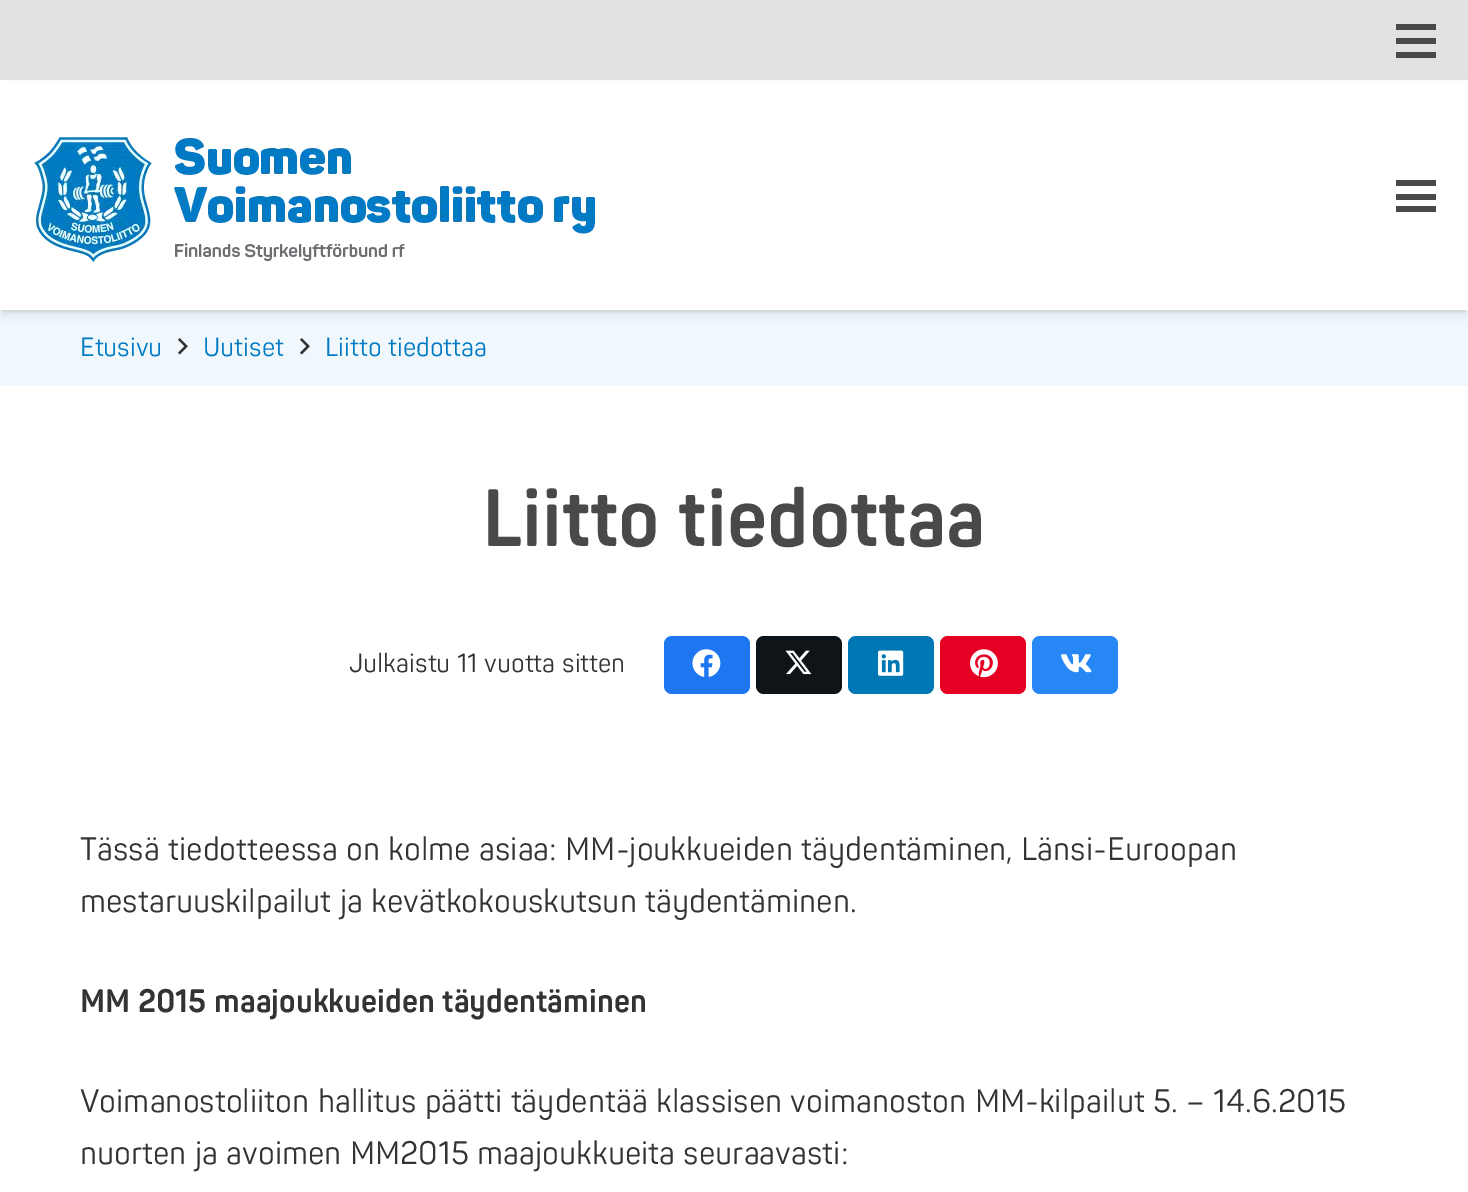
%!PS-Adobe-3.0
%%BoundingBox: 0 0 1468 1192
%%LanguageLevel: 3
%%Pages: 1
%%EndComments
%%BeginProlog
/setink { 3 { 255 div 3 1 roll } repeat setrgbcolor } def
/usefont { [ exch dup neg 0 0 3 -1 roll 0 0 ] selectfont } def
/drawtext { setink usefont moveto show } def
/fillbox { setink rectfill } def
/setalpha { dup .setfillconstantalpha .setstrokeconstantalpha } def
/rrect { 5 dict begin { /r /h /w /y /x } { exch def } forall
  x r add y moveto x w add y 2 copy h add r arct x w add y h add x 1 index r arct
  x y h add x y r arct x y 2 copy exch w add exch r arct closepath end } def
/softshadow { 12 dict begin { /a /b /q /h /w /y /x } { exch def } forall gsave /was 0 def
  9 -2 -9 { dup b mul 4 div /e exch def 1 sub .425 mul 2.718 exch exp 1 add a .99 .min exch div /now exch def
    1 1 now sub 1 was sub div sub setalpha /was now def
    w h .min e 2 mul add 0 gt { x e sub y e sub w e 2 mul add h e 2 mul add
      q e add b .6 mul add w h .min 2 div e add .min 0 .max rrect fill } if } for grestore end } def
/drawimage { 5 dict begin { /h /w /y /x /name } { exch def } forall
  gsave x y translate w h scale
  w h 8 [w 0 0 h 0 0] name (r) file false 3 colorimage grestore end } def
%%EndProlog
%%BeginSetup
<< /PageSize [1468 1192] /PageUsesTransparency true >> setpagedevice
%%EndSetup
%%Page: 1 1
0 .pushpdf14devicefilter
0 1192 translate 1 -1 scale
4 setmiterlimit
0 0 1468 1192 255 255 255 fillbox
0 0 1468 80 227 226 226 fillbox
1396 38 40 6 74 72 72 fillbox
1396 24 40 6 74 72 72 fillbox
1396 52 40 6 74 72 72 fillbox
0 310 1468 76 240 248 253 fillbox
0 0 0 setink
2 86 1464 226 0 1 0.05 softshadow
2 88 1464 226 0 5 0.1 softshadow
0 82 1468 228 255 255 255 fillbox
(assets/img1.rgb) 34 137 561 125 drawimage
1396 194 40 6 74 72 72 fillbox
1396 180 40 6 74 72 72 fillbox
1396 206 40 6 74 72 72 fillbox
(Etusivu) 80 356 /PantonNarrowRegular-Regular 26 0 122 195 drawtext
(assets/img2.rgb) 178 338 10 17 drawimage
(Uutiset) 203 356 /PantonNarrowRegular-Regular 26 0 122 195 drawtext
(assets/img2.rgb) 300 338 10 17 drawimage
(Liitto tiedottaa) 325 356 /PantonNarrowRegular-Regular 26 0 122 195 drawtext
(Liitto tiedottaa) 482 546 /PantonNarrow-Bold 80 74 72 72 drawtext
(Julkaistu 11 vuotta sitten) 349 672 /PantonNarrowRegular-Regular 26 51 51 51 drawtext
30 119 240 setink
664 636 86 58 8 rrect fill
(assets/img3.rgb) 692 649 29 28 drawimage
15 20 25 setink
756 636 86 58 8 rrect fill
(assets/img4.rgb) 785 650 27 25 drawimage
0 119 181 setink
848 636 86 58 8 rrect fill
(assets/img5.rgb) 878 650 26 26 drawimage
230 0 35 setink
940 636 86 58 8 rrect fill
(assets/img6.rgb) 970 649 28 29 drawimage
39 135 245 setink
1032 636 86 58 8 rrect fill
(assets/img7.rgb) 1061 654 31 19 drawimage
(Tässä tiedotteessa on kolme asiaa: MM-joukkueiden täydentäminen, Länsi-Euroopan) 80 860 /PantonNarrowRegular-Regular 32 51 51 51 drawtext
(mestaruuskilpailut ja kevätkokouskutsun täydentäminen.) 80 912 /PantonNarrowRegular-Regular 32 51 51 51 drawtext
(MM 2015 maajoukkueiden täydentäminen) 80 1012 /PantonNarrow-Bold 32 51 51 51 drawtext
(Voimanostoliiton hallitus päätti täydentää klassisen voimanoston MM-kilpailut 5. – 14.6.2015) 80 1112 /PantonNarrowRegular-Regular 32 51 51 51 drawtext
(nuorten ja avoimen MM2015 maajoukkueita seuraavasti:) 80 1164 /PantonNarrowRegular-Regular 32 51 51 51 drawtext
.poppdf14devicefilter showpage
%%EOF
